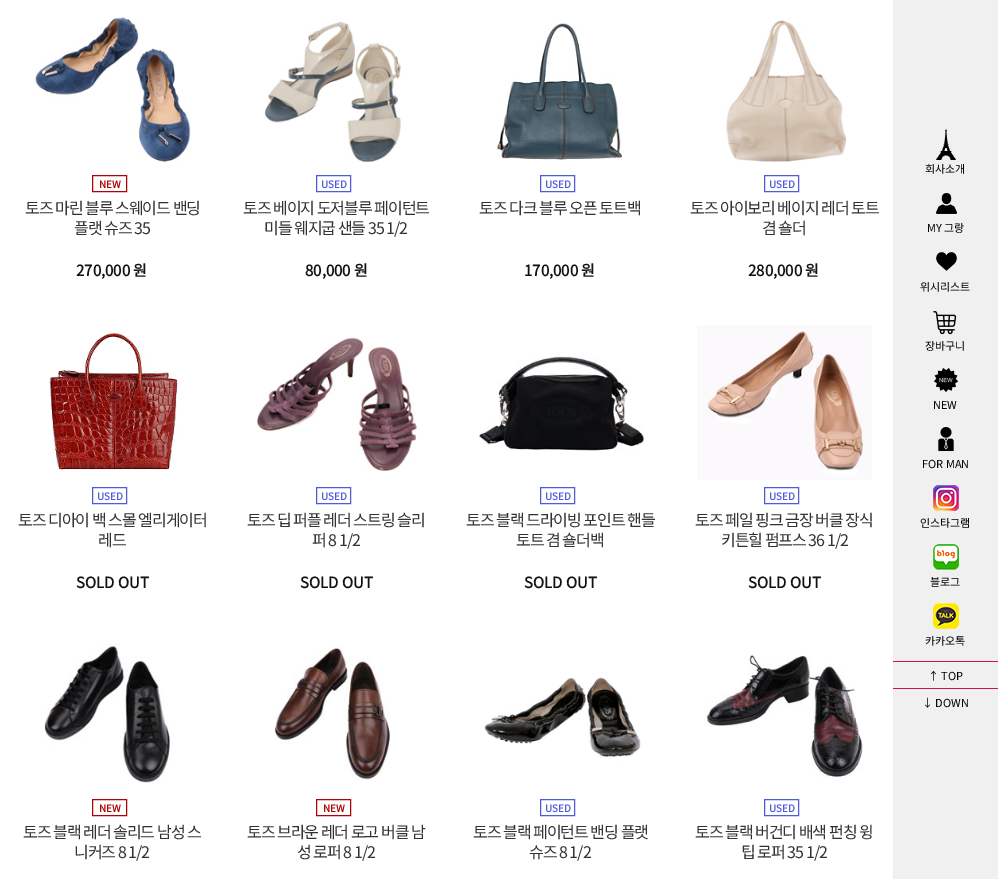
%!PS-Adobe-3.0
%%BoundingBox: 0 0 998 879
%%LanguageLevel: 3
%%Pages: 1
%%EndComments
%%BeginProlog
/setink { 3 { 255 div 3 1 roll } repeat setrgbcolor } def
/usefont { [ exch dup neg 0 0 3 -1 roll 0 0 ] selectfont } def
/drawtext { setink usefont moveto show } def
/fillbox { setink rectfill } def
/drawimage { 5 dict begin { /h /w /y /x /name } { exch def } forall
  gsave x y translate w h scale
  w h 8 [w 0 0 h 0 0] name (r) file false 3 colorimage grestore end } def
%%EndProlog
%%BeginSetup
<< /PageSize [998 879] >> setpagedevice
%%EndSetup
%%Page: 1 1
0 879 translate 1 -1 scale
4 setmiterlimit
0 0 998 879 255 255 255 fillbox
(assets/img1.rgb) 33 17 158 145 drawimage
175 4 4 setink
92.5 175.5 34 16 rectstroke
(NEW) 99 188 /NotoSansKR-Bold 10 175 4 4 drawtext
/NotoSansKR-Thin 16 usefont
51 51 51 setink
25 214 moveto -1 0 (토즈 마린 블루 스웨이드 밴딩) ashow
74 234 moveto -1 0 (플랫 슈즈 35) ashow
(270,000 원) 76 276 /NotoSansKR-Bold 15 18 18 18 drawtext
(assets/img2.rgb) 264 21 138 141 drawimage
80 91 218 setink
316.5 175.5 34 16 rectstroke
(USED) 321 188 /NotoSansKR-Bold 10 80 91 218 drawtext
/NotoSansKR-Thin 16 usefont
51 51 51 setink
243 214 moveto -1 0 (토즈 베이지 도저블루 페이턴트) ashow
264 234 moveto -1 0 (미들 웨지굽 샌들 35 1/2) ashow
(80,000 원) 305 276 /NotoSansKR-Bold 15 18 18 18 drawtext
(assets/img3.rgb) 497 23 125 137 drawimage
80 91 218 setink
540.5 175.5 34 16 rectstroke
(USED) 545 188 /NotoSansKR-Bold 10 80 91 218 drawtext
/NotoSansKR-Thin 16 usefont
51 51 51 setink
479 214 moveto -1 0 (토즈 다크 블루 오픈 토트백) ashow
(170,000 원) 524 276 /NotoSansKR-Bold 15 18 18 18 drawtext
(assets/img4.rgb) 726 20 121 142 drawimage
80 91 218 setink
764.5 175.5 34 16 rectstroke
(USED) 769 188 /NotoSansKR-Bold 10 80 91 218 drawtext
/NotoSansKR-Thin 16 usefont
51 51 51 setink
690 214 moveto -1 0 (토즈 아이보리 베이지 레더 토트) ashow
762 234 moveto -1 0 (겸 숄더) ashow
(280,000 원) 748 276 /NotoSansKR-Bold 15 18 18 18 drawtext
(assets/img5.rgb) 49 333 129 137 drawimage
80 91 218 setink
92.5 487.5 34 16 rectstroke
(USED) 97 500 /NotoSansKR-Bold 10 80 91 218 drawtext
/NotoSansKR-Thin 16 usefont
51 51 51 setink
18 526 moveto -1 0 (토즈 디아이 백 스몰 엘리게이터) ashow
98 546 moveto -1 0 (레드) ashow
(SOLD OUT) 76 588 /NotoSansKR-Bold 15 18 18 18 drawtext
(assets/img6.rgb) 257 337 160 134 drawimage
80 91 218 setink
316.5 487.5 34 16 rectstroke
(USED) 321 500 /NotoSansKR-Bold 10 80 91 218 drawtext
/NotoSansKR-Thin 16 usefont
51 51 51 setink
247 526 moveto -1 0 (토즈 딥 퍼플 레더 스트링 슬리) ashow
312 546 moveto -1 0 (퍼 8 1/2) ashow
(SOLD OUT) 300 588 /NotoSansKR-Bold 15 18 18 18 drawtext
(assets/img7.rgb) 479 356 166 95 drawimage
80 91 218 setink
540.5 487.5 34 16 rectstroke
(USED) 545 500 /NotoSansKR-Bold 10 80 91 218 drawtext
/NotoSansKR-Thin 16 usefont
51 51 51 setink
466 526 moveto -1 0 (토즈 블랙 드라이빙 포인트 핸들) ashow
516 546 moveto -1 0 (토트 겸 숄더백) ashow
(SOLD OUT) 524 588 /NotoSansKR-Bold 15 18 18 18 drawtext
(assets/img8.rgb) 697 325 175 155 drawimage
80 91 218 setink
764.5 487.5 34 16 rectstroke
(USED) 769 500 /NotoSansKR-Bold 10 80 91 218 drawtext
/NotoSansKR-Thin 16 usefont
51 51 51 setink
695 526 moveto -1 0 (토즈 페일 핑크 금장 버클 장식) ashow
721 546 moveto -1 0 (키튼힐 펌프스 36 1/2) ashow
(SOLD OUT) 748 588 /NotoSansKR-Bold 15 18 18 18 drawtext
(assets/img9.rgb) 44 643 126 140 drawimage
175 4 4 setink
92.5 799.5 34 16 rectstroke
(NEW) 99 812 /NotoSansKR-Bold 10 175 4 4 drawtext
/NotoSansKR-Thin 16 usefont
51 51 51 setink
23 838 moveto -1 0 (토즈 블랙 레더 솔리드 남성 스) ashow
74 858 moveto -1 0 (니커즈 8 1/2) ashow
(assets/img10.rgb) 274 643 116 139 drawimage
175 4 4 setink
316.5 799.5 34 16 rectstroke
(NEW) 323 812 /NotoSansKR-Bold 10 175 4 4 drawtext
/NotoSansKR-Thin 16 usefont
51 51 51 setink
247 838 moveto -1 0 (토즈 브라운 레더 로고 버클 남) ashow
297 858 moveto -1 0 (성 로퍼 8 1/2) ashow
(assets/img11.rgb) 484 677 157 87 drawimage
80 91 218 setink
540.5 799.5 34 16 rectstroke
(USED) 545 812 /NotoSansKR-Bold 10 80 91 218 drawtext
/NotoSansKR-Thin 16 usefont
51 51 51 setink
473 838 moveto -1 0 (토즈 블랙 페이턴트 밴딩 플랫) ashow
529 858 moveto -1 0 (슈즈 8 1/2) ashow
(assets/img12.rgb) 704 654 159 123 drawimage
80 91 218 setink
764.5 799.5 34 16 rectstroke
(USED) 769 812 /NotoSansKR-Bold 10 80 91 218 drawtext
/NotoSansKR-Thin 16 usefont
51 51 51 setink
695 838 moveto -1 0 (토즈 블랙 버건디 배색 펀칭 윙) ashow
741 858 moveto -1 0 (팁 로퍼 35 1/2) ashow
893 0 105 879 240 240 240 fillbox
(assets/img13.rgb) 936 128 20 32 drawimage
(회사소개) 925 173 /NotoSansKR-Thin 11 0 0 0 drawtext
(assets/img14.rgb) 936 193 21 21 drawimage
(MY 그랑) 927 232 /NotoSansKR-Thin 11 0 0 0 drawtext
(assets/img15.rgb) 936 252 21 19 drawimage
(위시리스트) 920 291 /NotoSansKR-Thin 11 0 0 0 drawtext
(assets/img16.rgb) 933 311 24 24 drawimage
(장바구니) 925 350 /NotoSansKR-Thin 11 0 0 0 drawtext
(assets/img17.rgb) 933 368 26 24 drawimage
(NEW) 933 409 /NotoSansKR-Thin 11 0 0 0 drawtext
(assets/img18.rgb) 938 427 16 25 drawimage
(FOR MAN) 922 468 /NotoSansKR-Thin 11 0 0 0 drawtext
(assets/img19.rgb) 933 485 26 26 drawimage
(인스타그램) 920 527 /NotoSansKR-Thin 11 0 0 0 drawtext
(assets/img20.rgb) 933 544 26 26 drawimage
(블로그) 930 586 /NotoSansKR-Thin 11 0 0 0 drawtext
(assets/img21.rgb) 933 603 26 26 drawimage
(카카오톡) 925 645 /NotoSansKR-Thin 11 0 0 0 drawtext
893 661 105 1 208 16 93 fillbox
(↑ TOP) 928 680 /NotoSansKR-Thin 11 0 0 0 drawtext
893 688 105 1 208 16 93 fillbox
(↓ DOWN) 922 707 /NotoSansKR-Thin 11 0 0 0 drawtext
showpage
%%EOF
